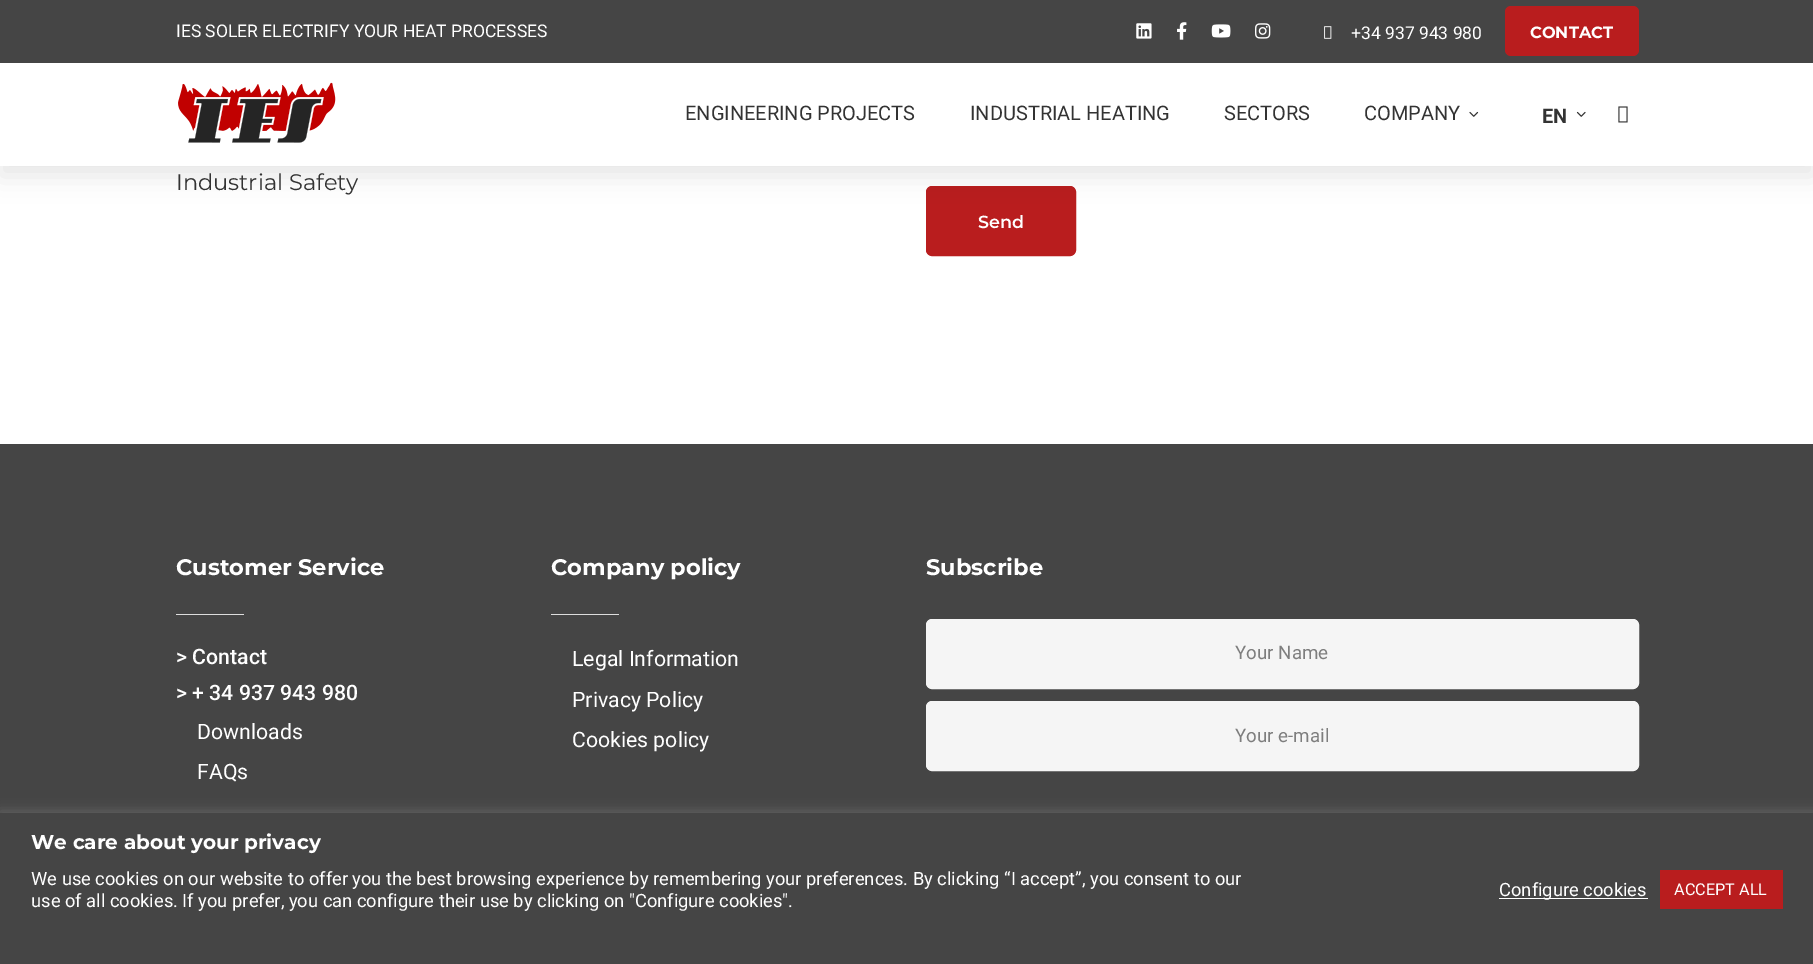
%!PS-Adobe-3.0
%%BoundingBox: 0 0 1813 964
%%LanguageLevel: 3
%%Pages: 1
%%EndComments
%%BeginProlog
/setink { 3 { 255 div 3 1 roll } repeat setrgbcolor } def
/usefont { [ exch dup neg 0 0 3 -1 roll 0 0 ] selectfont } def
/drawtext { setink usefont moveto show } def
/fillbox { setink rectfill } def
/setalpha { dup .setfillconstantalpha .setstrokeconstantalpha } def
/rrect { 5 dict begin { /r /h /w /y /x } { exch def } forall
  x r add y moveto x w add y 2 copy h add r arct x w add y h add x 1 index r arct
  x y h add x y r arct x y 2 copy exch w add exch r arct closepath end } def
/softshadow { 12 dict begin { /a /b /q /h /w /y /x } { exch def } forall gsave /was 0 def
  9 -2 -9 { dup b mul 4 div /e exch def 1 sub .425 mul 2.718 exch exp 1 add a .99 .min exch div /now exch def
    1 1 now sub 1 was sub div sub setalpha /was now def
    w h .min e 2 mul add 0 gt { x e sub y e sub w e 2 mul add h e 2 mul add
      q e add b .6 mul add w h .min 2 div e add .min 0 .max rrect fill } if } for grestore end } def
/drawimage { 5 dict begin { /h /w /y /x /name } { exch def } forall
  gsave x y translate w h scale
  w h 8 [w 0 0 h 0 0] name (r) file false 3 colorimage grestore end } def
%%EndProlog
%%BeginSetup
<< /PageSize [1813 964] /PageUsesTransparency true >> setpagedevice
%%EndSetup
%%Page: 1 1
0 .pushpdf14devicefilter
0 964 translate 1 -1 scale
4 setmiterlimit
0 0 1813 964 255 255 255 fillbox
185 29 30 setink
926.5 186.5 149 69 5.5 rrect gsave fill grestore
stroke
0 0 0 setink
0 10 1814 166 0 12.5 0.1 softshadow
0 63 1813 103 255 255 255 fillbox
0 0 1813 63 69 69 69 fillbox
(IES SOLER ELECTRIFY YOUR HEAT PROCESSES) 176 37 /Roboto-Regular 17.5 255 255 255 drawtext
(assets/img1.rgb) 1136 23 16 16 drawimage
(assets/img2.rgb) 1177 22 10 18 drawimage
(assets/img3.rgb) 1211 24 20 14 drawimage
(assets/img4.rgb) 1255 23 16 16 drawimage
(assets/img5.rgb) 1324 26 8 13 drawimage
(+34 937 943 980) 1351 39 /Roboto-Regular 17.5 255 255 255 drawtext
185 29 30 setink
1505 6 134 50 6 rrect fill
(CONTACT) 1530 38 /Montserrat-Bold 16.25 255 255 255 drawtext
(assets/img6.rgb) 178 82 158 61 drawimage
(ENGINEERING PROJECTS) 685 120 /Roboto-Regular 20 51 51 51 drawtext
(INDUSTRIAL HEATING) 970 120 /Roboto-Regular 20 51 51 51 drawtext
(SECTORS) 1224 120 /Roboto-Regular 20 51 51 51 drawtext
(COMPANY) 1364 120 /Roboto-Regular 20 51 51 51 drawtext
(assets/img7.rgb) 1469 111 10 6 drawimage
(EN) 1542 123 /Roboto-Bold 20 51 51 51 drawtext
(assets/img8.rgb) 1576 111 10 6 drawimage
(assets/img9.rgb) 1618 106 10 17 drawimage
(Industrial Safety) 176 190 /Montserrat-Regular 22.5 51 51 51 drawtext
(Send) 978 228 /Montserrat-SemiBold 17.5 255 255 255 drawtext
0 444 1813 369 69 69 69 fillbox
(Customer Service) 176 575 /Montserrat-Bold 22.5 255 255 255 drawtext
176 614 68 1 221 221 221 fillbox
(> Contact) 176 664 /Roboto-Medium 21.25 255 255 255 drawtext
(> + 34 937 943 980) 176 700 /Roboto-Medium 21.25 255 255 255 drawtext
(Downloads) 197 739 /Roboto-Regular 21.25 255 255 255 drawtext
(FAQs) 197 779 /Roboto-Regular 21.25 255 255 255 drawtext
(Company policy) 551 575 /Montserrat-Bold 22.5 255 255 255 drawtext
551 614 68 1 221 221 221 fillbox
(Legal Information) 572 666 /Roboto-Regular 21.25 255 255 255 drawtext
(Privacy Policy) 572 707 /Roboto-Regular 21.25 255 255 255 drawtext
(Cookies policy) 572 747 /Roboto-Regular 21.25 255 255 255 drawtext
(Subscribe) 926 575 /Montserrat-Bold 22.5 255 255 255 drawtext
245 245 245 setink
926.5 619.5 712 69 5.5 rrect gsave fill grestore
stroke
(Your Name) 1235 659 /Roboto-Regular 18.75 126 126 126 drawtext
245 245 245 setink
926.5 701.5 712 69 5.5 rrect gsave fill grestore
stroke
(Your e-mail) 1235 742 /Roboto-Regular 18.75 126 126 126 drawtext
172 171 171 setink
0 811 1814 153 0 6 0.3 softshadow
0 813 1813 151 69 69 69 fillbox
(We care about your privacy) 31 849 /Montserrat-Bold 20 255 255 255 drawtext
(We use cookies on our website to offer you the best browsing experience by remembering your preferences. By clicking “I accept”, you consent to our) 31 885 /Roboto-Regular 18.33 255 255 255 drawtext
(use of all cookies. If you prefer, you can configure their use by clicking on "Configure cookies".) 31 907 /Roboto-Regular 18.33 255 255 255 drawtext
1499 898 149 1 255 255 255 fillbox
(Configure cookies) 1499 896 /Roboto-Regular 18.33 255 255 255 drawtext
1660 870 123 39 185 29 30 fillbox
(ACCEPT ALL) 1674 895 /Roboto-Regular 16.25 255 255 255 drawtext
.poppdf14devicefilter showpage
%%EOF
